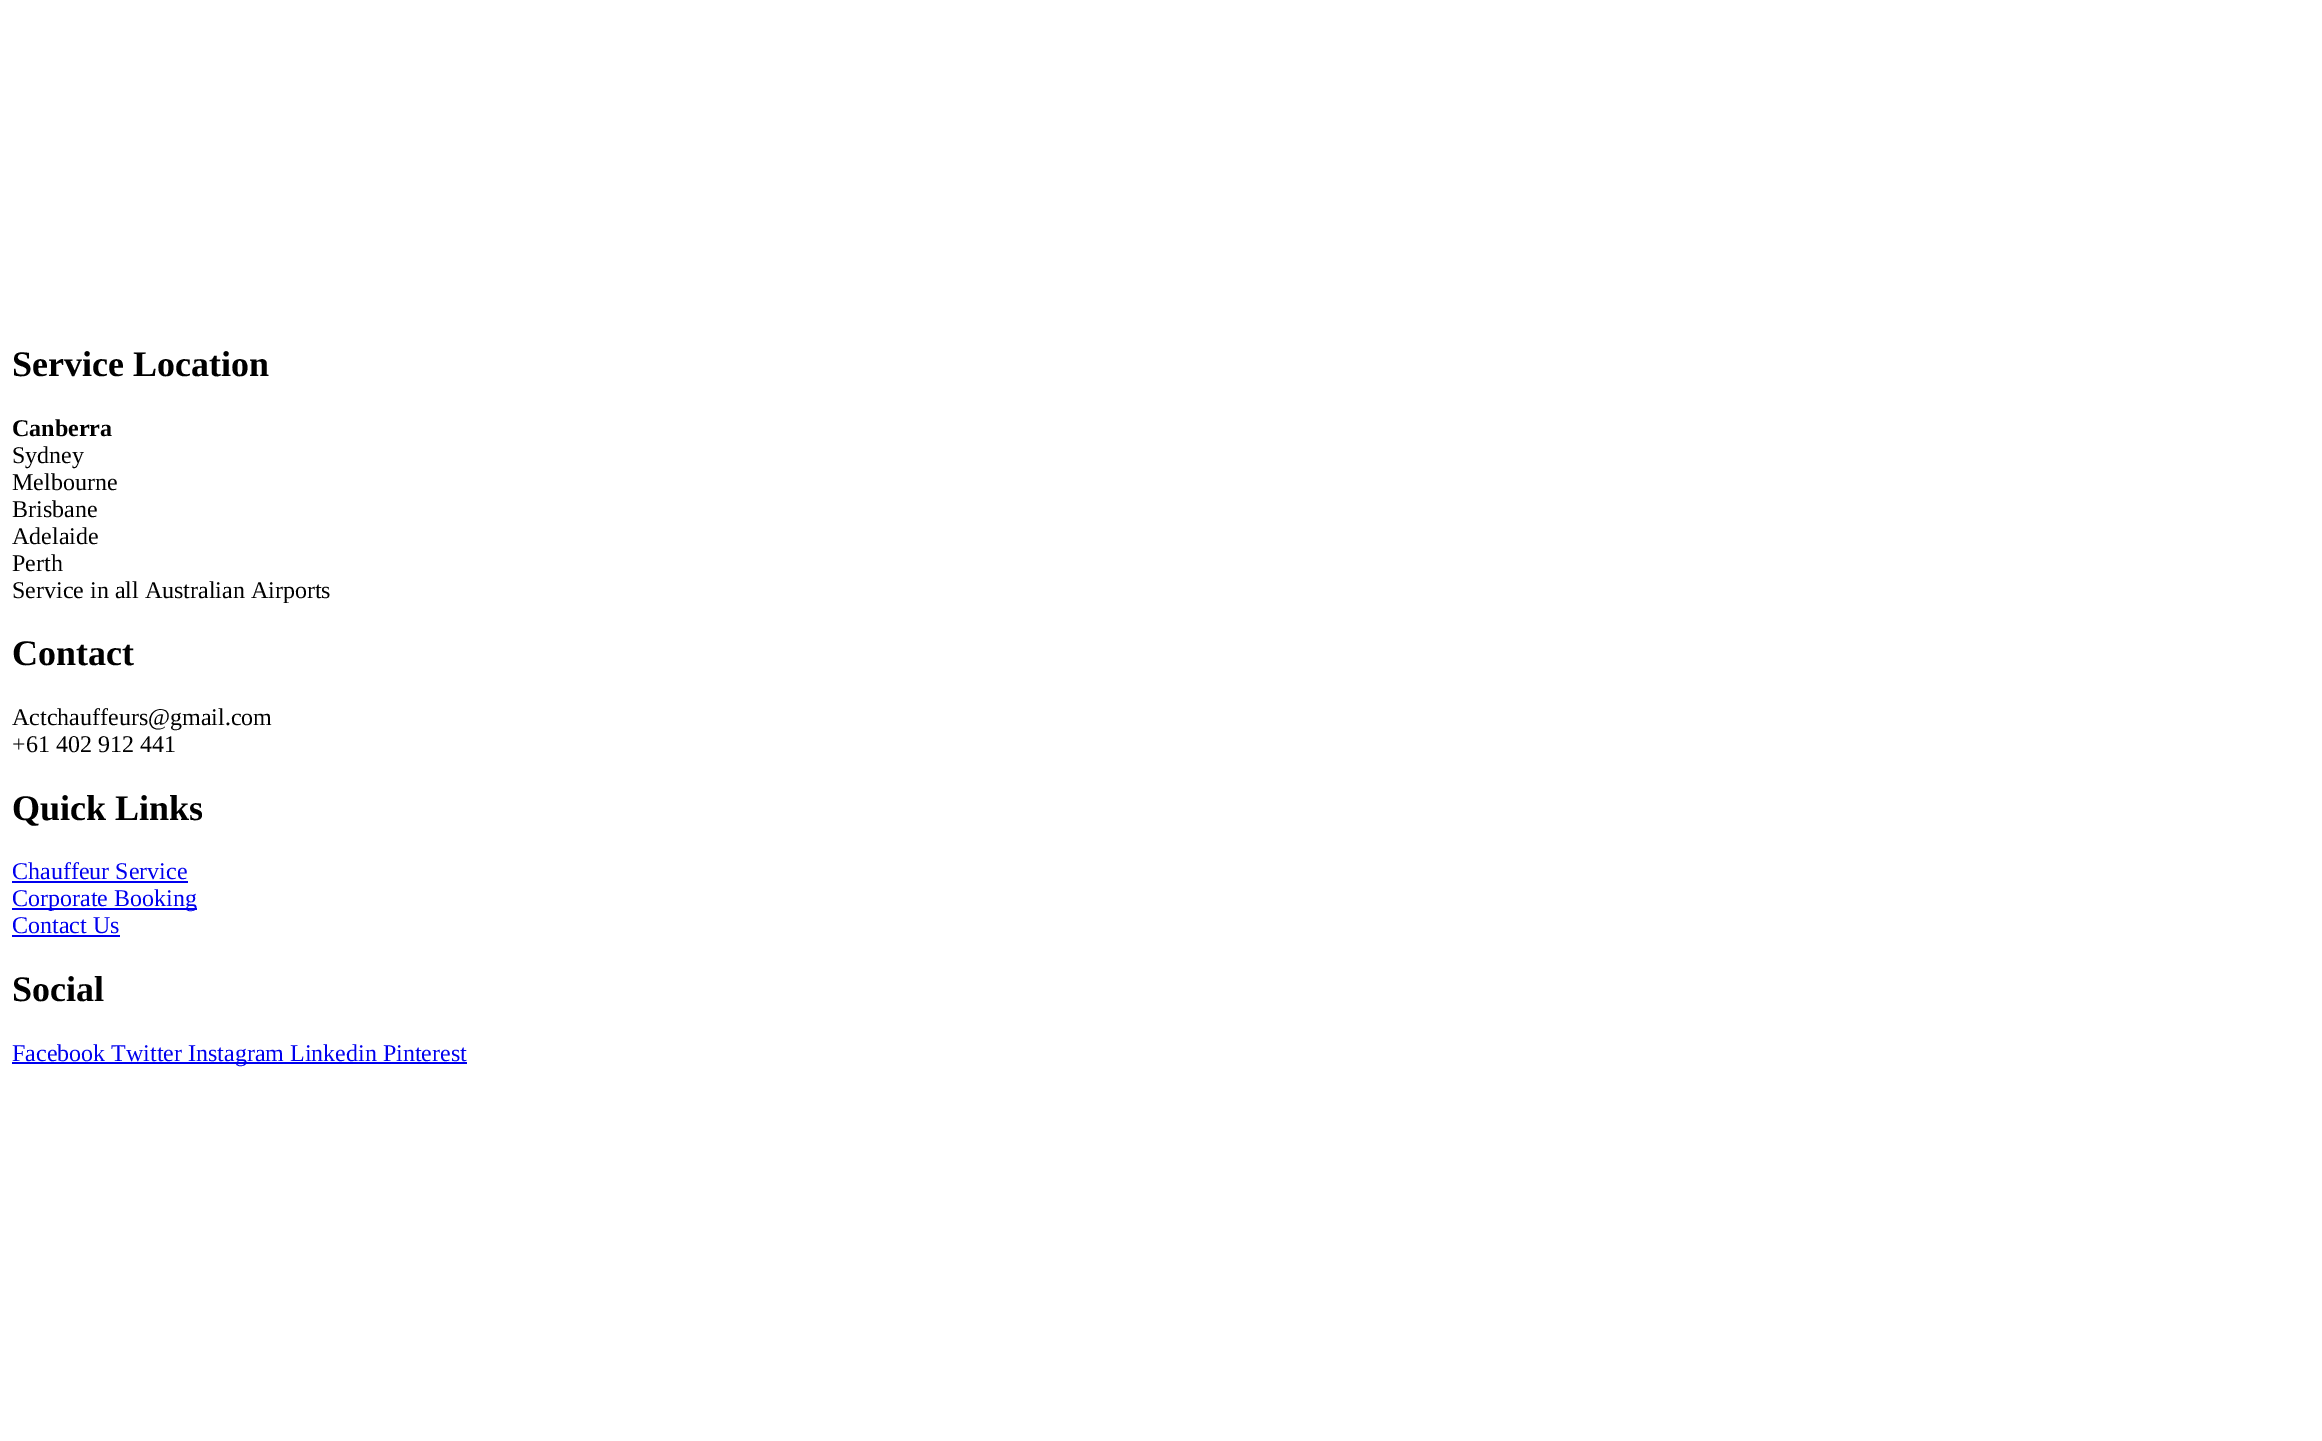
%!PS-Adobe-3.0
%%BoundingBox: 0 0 2322 1441
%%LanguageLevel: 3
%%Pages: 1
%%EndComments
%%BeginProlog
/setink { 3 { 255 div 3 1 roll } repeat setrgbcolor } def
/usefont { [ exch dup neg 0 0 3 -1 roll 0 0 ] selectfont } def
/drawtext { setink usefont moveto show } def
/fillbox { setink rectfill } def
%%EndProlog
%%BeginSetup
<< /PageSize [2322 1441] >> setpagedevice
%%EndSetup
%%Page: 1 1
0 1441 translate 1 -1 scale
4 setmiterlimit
0 0 2322 1441 255 255 255 fillbox
(Service Location) 12 376 /LiberationSerif-Bold 36 0 0 0 drawtext
(Canberra) 12 436 /LiberationSerif-Bold 24 0 0 0 drawtext
(Sydney) 12 463 /LiberationSerif-Regular 24 0 0 0 drawtext
(Melbourne) 12 490 /LiberationSerif-Regular 24 0 0 0 drawtext
(Brisbane) 12 517 /LiberationSerif-Regular 24 0 0 0 drawtext
(Adelaide) 12 544 /LiberationSerif-Regular 24 0 0 0 drawtext
(Perth) 12 571 /LiberationSerif-Regular 24 0 0 0 drawtext
(Service in all Australian Airports) 12 598 /LiberationSerif-Regular 24 0 0 0 drawtext
(Contact) 12 665 /LiberationSerif-Bold 36 0 0 0 drawtext
(Actchauffeurs@gmail.com) 12 725 /LiberationSerif-Regular 24 0 0 0 drawtext
(+61 402 912 441) 12 752 /LiberationSerif-Regular 24 0 0 0 drawtext
(Quick Links) 12 820 /LiberationSerif-Bold 36 0 0 0 drawtext
(Chauffeur Service) 12 879 /LiberationSerif-Regular 24 0 0 238 drawtext
12 881 176 2 0 0 238 fillbox
12 908 185 2 0 0 238 fillbox
(Corporate Booking) 12 906 /LiberationSerif-Regular 24 0 0 238 drawtext
(Contact Us) 12 933 /LiberationSerif-Regular 24 0 0 238 drawtext
12 935 108 2 0 0 238 fillbox
(Social) 12 1001 /LiberationSerif-Bold 36 0 0 0 drawtext
12 1062 455 2 0 0 238 fillbox
(Facebook Twitter Instagram Linkedin Pinterest) 12 1061 /LiberationSerif-Regular 24 0 0 238 drawtext
showpage
%%EOF
